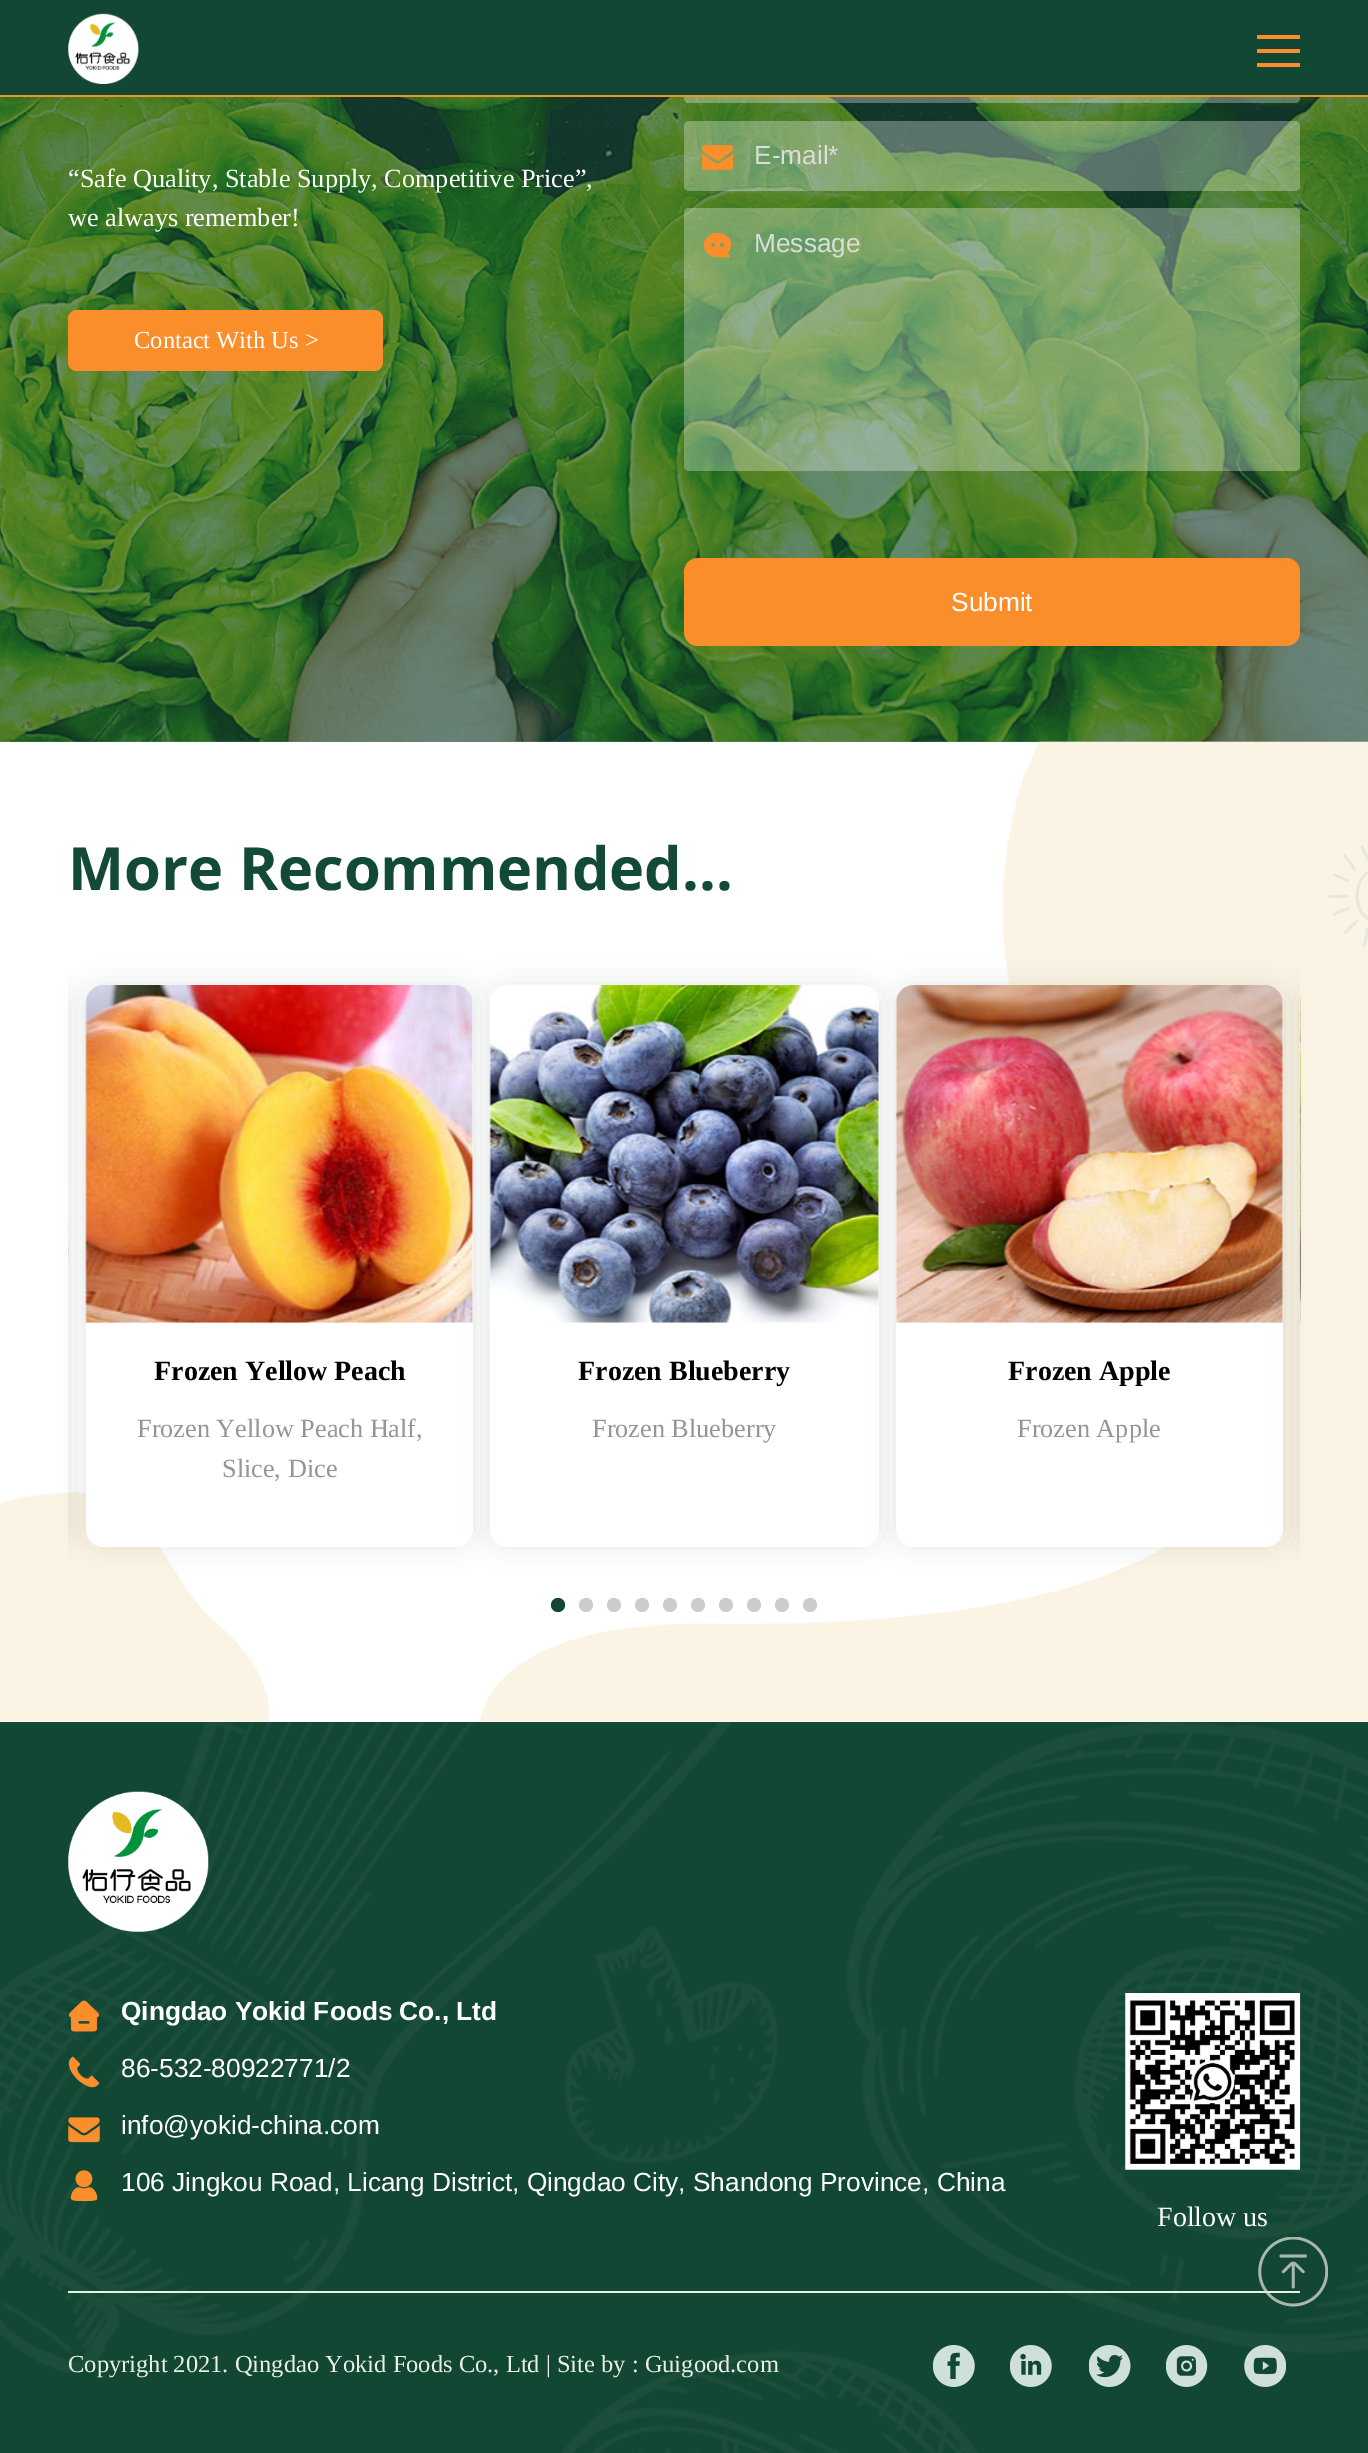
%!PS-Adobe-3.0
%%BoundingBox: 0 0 1368 2453
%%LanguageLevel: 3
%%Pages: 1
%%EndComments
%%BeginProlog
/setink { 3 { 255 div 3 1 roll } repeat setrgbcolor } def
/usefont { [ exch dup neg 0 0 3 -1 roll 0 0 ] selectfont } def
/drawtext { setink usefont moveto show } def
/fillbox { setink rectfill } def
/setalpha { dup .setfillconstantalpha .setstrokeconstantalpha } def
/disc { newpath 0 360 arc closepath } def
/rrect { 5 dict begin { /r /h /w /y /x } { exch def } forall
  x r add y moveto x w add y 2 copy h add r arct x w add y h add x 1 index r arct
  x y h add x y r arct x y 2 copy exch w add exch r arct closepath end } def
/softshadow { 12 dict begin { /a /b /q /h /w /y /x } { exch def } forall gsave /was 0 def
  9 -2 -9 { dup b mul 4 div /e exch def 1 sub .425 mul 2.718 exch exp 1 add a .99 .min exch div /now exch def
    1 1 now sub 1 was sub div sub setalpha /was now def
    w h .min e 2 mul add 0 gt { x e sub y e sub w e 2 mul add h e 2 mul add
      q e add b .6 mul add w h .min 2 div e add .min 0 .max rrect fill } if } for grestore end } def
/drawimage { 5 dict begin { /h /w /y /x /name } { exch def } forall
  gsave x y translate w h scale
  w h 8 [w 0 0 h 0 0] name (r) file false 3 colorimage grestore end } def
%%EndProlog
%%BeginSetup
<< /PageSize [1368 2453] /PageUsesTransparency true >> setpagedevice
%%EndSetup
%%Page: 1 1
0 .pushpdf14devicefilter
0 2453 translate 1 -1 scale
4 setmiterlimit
0 0 1368 2453 255 255 255 fillbox
(assets/img2.rgb) 0 97 1368 645 drawimage
0.3 setalpha
684 33 616 70 5 rrect fill
1 setalpha
0 0 1368 95 18 71 52 fillbox
0 95 1368 2 249 142 43 fillbox
(assets/img1.rgb) 68 13 71 71 drawimage
1257 35 43 4 249 142 43 fillbox
1257 49 43 4 249 142 43 fillbox
1257 63 43 4 249 142 43 fillbox
(“Safe Quality, Stable Supply, Competitive Price”,) 68 187 /LiberationSerif-Regular 26.25 255 255 255 drawtext
(we always remember!) 68 226 /LiberationSerif-Regular 26.25 255 255 255 drawtext
249 142 43 setink
68 310 315 61 9 rrect fill
(Contact With Us >) 134 348 /LiberationSerif-Regular 24.5 255 255 255 drawtext
0.3 setalpha
684 121 616 70 5 rrect fill
1 setalpha
(assets/img3.rgb) 702 145 31 25 drawimage
(E-mail*) 754 164 /LiberationSans-Regular 26.25 219 222 217 drawtext
0.3 setalpha
255 255 255 setink
684 208 616 263 5 rrect fill
1 setalpha
(assets/img4.rgb) 703 232 29 26 drawimage
(Message) 754 252 /LiberationSans-Regular 26.25 219 222 217 drawtext
249 142 43 setink
684 558 616 88 14 rrect fill
(Submit) 951 611 /LiberationSans-Regular 26.25 255 255 255 drawtext
(assets/img5.rgb) 479 741 889 981 drawimage
(More Recommended...) 68 890 /OpenSans-Bold 59.5 19 74 55 drawtext
(assets/img12.rgb) 0 1492 270 230 drawimage
gsave
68 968 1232 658 rectclip
15 37 32 setink
-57 985 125 562 18 13 0.1 softshadow
grestore
(assets/img6.rgb) 68 1177 1 146 drawimage
15 37 32 setink
86 985 387 562 18 13 0.1 softshadow
255 255 255 setink
86 985 387 562 18 rrect fill
(assets/img7.rgb) 85 985 388 338 drawimage
(Frozen Yellow Peach) 154 1380 /LiberationSerif-Bold 28 0 0 0 drawtext
(Frozen Yellow Peach Half,) 137 1437 /LiberationSerif-Regular 26.25 149 149 149 drawtext
(Slice, Dice) 222 1477 /LiberationSerif-Regular 26.25 149 149 149 drawtext
15 37 32 setink
490 985 389 562 18 13 0.1 softshadow
255 255 255 setink
490 985 389 562 18 rrect fill
(assets/img8.rgb) 489 985 390 338 drawimage
(Frozen Blueberry) 578 1380 /LiberationSerif-Bold 28 0 0 0 drawtext
(Frozen Blueberry) 592 1437 /LiberationSerif-Regular 26.25 149 149 149 drawtext
15 37 32 setink
896 985 387 562 18 13 0.1 softshadow
255 255 255 setink
896 985 387 562 18 rrect fill
(assets/img9.rgb) 895 985 389 338 drawimage
(Frozen Apple) 1008 1380 /LiberationSerif-Bold 28 0 0 0 drawtext
(Frozen Apple) 1017 1437 /LiberationSerif-Regular 26.25 149 149 149 drawtext
(assets/img11.rgb) 1328 845 40 103 drawimage
gsave
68 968 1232 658 rectclip
15 37 32 setink
1300 985 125 562 18 13 0.1 softshadow
grestore
(assets/img10.rgb) 1299 996 2 327 drawimage
18 71 52 setink
558 1605 7 disc fill
204 204 204 setink
586 1605 7 disc fill
614 1605 7 disc fill
642 1605 7 disc fill
670 1605 7 disc fill
698 1605 7 disc fill
726 1605 7 disc fill
754 1605 7 disc fill
782 1605 7 disc fill
810 1605 7 disc fill
0 1722 1368 731 18 71 52 fillbox
(assets/img13.rgb) 0 1722 1368 731 drawimage
(assets/img14.rgb) 68 1791 141 141 drawimage
(assets/img15.rgb) 69 2000 30 32 drawimage
(Qingdao Yokid Foods Co., Ltd) 121 2020 /LiberationSans-Bold 26.25 255 255 255 drawtext
(assets/img16.rgb) 68 2056 32 32 drawimage
(86-532-80922771/2) 121 2077 /LiberationSans-Regular 26.25 255 255 255 drawtext
(assets/img17.rgb) 68 2117 32 26 drawimage
(info@yokid-china.com) 121 2134 /LiberationSans-Regular 26.25 255 255 255 drawtext
(assets/img18.rgb) 70 2170 28 32 drawimage
(106 Jingkou Road, Licang District, Qingdao City, Shandong Province, China) 121 2191 /LiberationSans-Regular 26.25 255 255 255 drawtext
(assets/img19.rgb) 1125 1993 176 177 drawimage
(Follow us) 1157 2226 /LiberationSerif-Regular 28 255 255 255 drawtext
68 2291 1232 2 235 239 230 fillbox
(Copyright 2021. Qingdao Yokid Foods Co., Ltd | Site by : Guigood.com) 68 2372 /LiberationSerif-Regular 24.5 235 239 230 drawtext
(assets/img20.rgb) 933 2345 42 42 drawimage
(assets/img21.rgb) 1010 2345 42 42 drawimage
(assets/img22.rgb) 1089 2345 42 42 drawimage
(assets/img23.rgb) 1166 2345 42 42 drawimage
(assets/img24.rgb) 1244 2345 42 42 drawimage
(assets/img25.rgb) 1258 2237 70 70 drawimage
(assets/img26.rgb) 1258 2237 70 70 drawimage
.poppdf14devicefilter showpage
%%EOF
